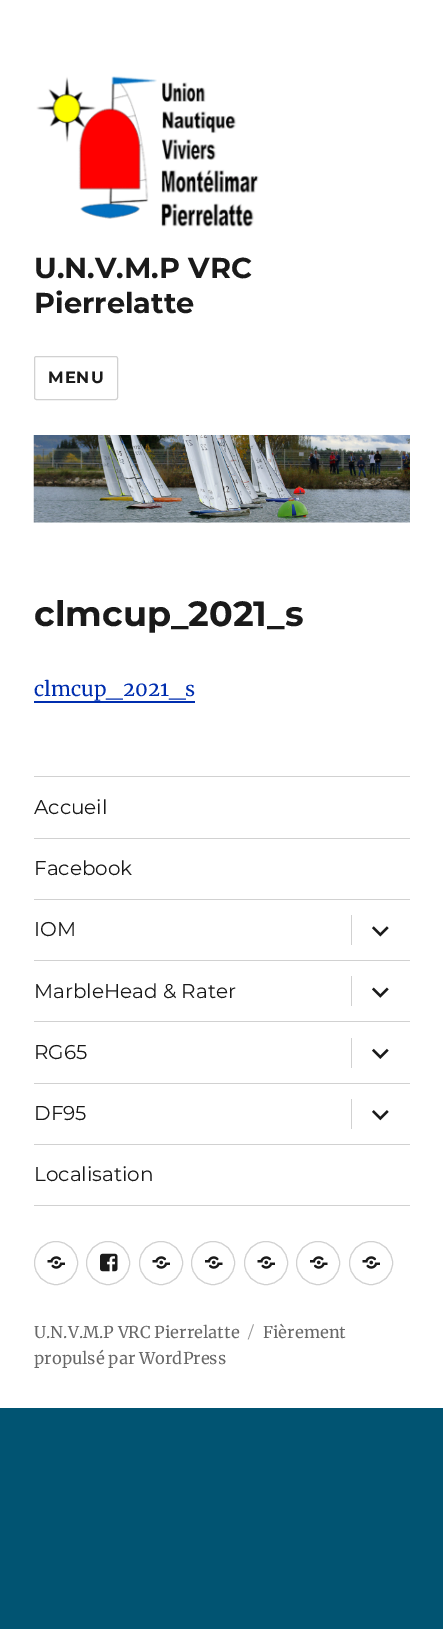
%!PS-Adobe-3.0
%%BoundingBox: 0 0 443 1629
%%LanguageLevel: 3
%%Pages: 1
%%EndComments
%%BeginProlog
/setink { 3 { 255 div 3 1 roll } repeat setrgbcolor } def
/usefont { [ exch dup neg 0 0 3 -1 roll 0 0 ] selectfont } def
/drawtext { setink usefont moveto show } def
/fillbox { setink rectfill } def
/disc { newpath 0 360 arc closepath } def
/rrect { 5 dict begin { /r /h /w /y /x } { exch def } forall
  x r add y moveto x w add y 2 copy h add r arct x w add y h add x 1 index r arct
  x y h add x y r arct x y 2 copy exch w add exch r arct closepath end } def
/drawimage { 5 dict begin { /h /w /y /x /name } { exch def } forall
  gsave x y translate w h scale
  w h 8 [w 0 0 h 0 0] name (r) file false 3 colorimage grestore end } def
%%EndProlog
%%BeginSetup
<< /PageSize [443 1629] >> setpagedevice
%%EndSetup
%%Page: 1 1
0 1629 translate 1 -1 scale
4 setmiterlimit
0 0 443 1629 1 84 114 fillbox
0 0 443 1408 255 255 255 fillbox
(assets/img1.rgb) 36 76 223 151 drawimage
(U.N.V.M.P VRC) 34 278 /Montserrat-Thin 28.75 26 26 26 drawtext
(Pierrelatte) 34 313 /Montserrat-Thin 28.75 26 26 26 drawtext
209 209 209 setink
34.5 356.5 83 43 2 rrect stroke
/Montserrat-Thin 16.25 usefont
26 26 26 setink
48 383 moveto 1 0 (MENU) ashow
(assets/img2.rgb) 33 435 377 88 drawimage
(clmcup_2021_s) 34 626 /Montserrat-Thin 35 26 26 26 drawtext
(clmcup_2021_s) 34 696 /Merriweather-Regular 20 0 46 175 drawtext
34 701 161 2 0 46 175 fillbox
34 1205 376 1 209 209 209 fillbox
34 776 376 1 209 209 209 fillbox
(Accueil) 34 814 /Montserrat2-Thin 20 26 26 26 drawtext
34 838 376 1 209 209 209 fillbox
(Facebook) 34 875 /Montserrat2-Thin 20 26 26 26 drawtext
34 899 376 1 209 209 209 fillbox
(IOM) 34 936 /Montserrat2-Thin 20 26 26 26 drawtext
351 915 1 30 209 209 209 fillbox
(assets/img3.rgb) 372 926 17 11 drawimage
34 960 376 1 209 209 209 fillbox
(MarbleHead & Rater) 34 998 /Montserrat2-Thin 20 26 26 26 drawtext
351 976 1 30 209 209 209 fillbox
(assets/img4.rgb) 372 987 17 11 drawimage
34 1021 376 1 209 209 209 fillbox
(RG65) 34 1059 /Montserrat2-Thin 20 26 26 26 drawtext
351 1038 1 30 209 209 209 fillbox
(assets/img5.rgb) 372 1048 17 11 drawimage
34 1083 376 1 209 209 209 fillbox
(DF95) 34 1120 /Montserrat2-Thin 20 26 26 26 drawtext
351 1099 1 30 209 209 209 fillbox
(assets/img6.rgb) 372 1110 17 11 drawimage
34 1144 376 1 209 209 209 fillbox
(Localisation) 34 1181 /Montserrat2-Thin 20 26 26 26 drawtext
209 209 209 setink
56 1263 21.5 disc stroke
(assets/img7.rgb) 47 1256 18 13 drawimage
108 1263 21.5 disc stroke
(assets/img8.rgb) 100 1253 18 19 drawimage
161 1263 21.5 disc stroke
(assets/img7.rgb) 152 1256 18 13 drawimage
213 1263 21.5 disc stroke
(assets/img9.rgb) 205 1256 18 13 drawimage
266 1263 21.5 disc stroke
(assets/img7.rgb) 257 1256 18 13 drawimage
318 1263 21.5 disc stroke
(assets/img9.rgb) 310 1256 18 13 drawimage
371 1263 21.5 disc stroke
(assets/img7.rgb) 362 1256 18 13 drawimage
(U.N.V.M.P VRC Pierrelatte) 34 1338 /Merriweather-Regular 16.25 104 104 104 drawtext
(/) 248 1338 /Montserrat2-Thin 16.25 149 149 149 drawtext
(Fièrement) 263 1338 /Merriweather-Regular 16.25 104 104 104 drawtext
(propulsé par WordPress) 34 1364 /Merriweather-Regular 16.25 104 104 104 drawtext
showpage
%%EOF
